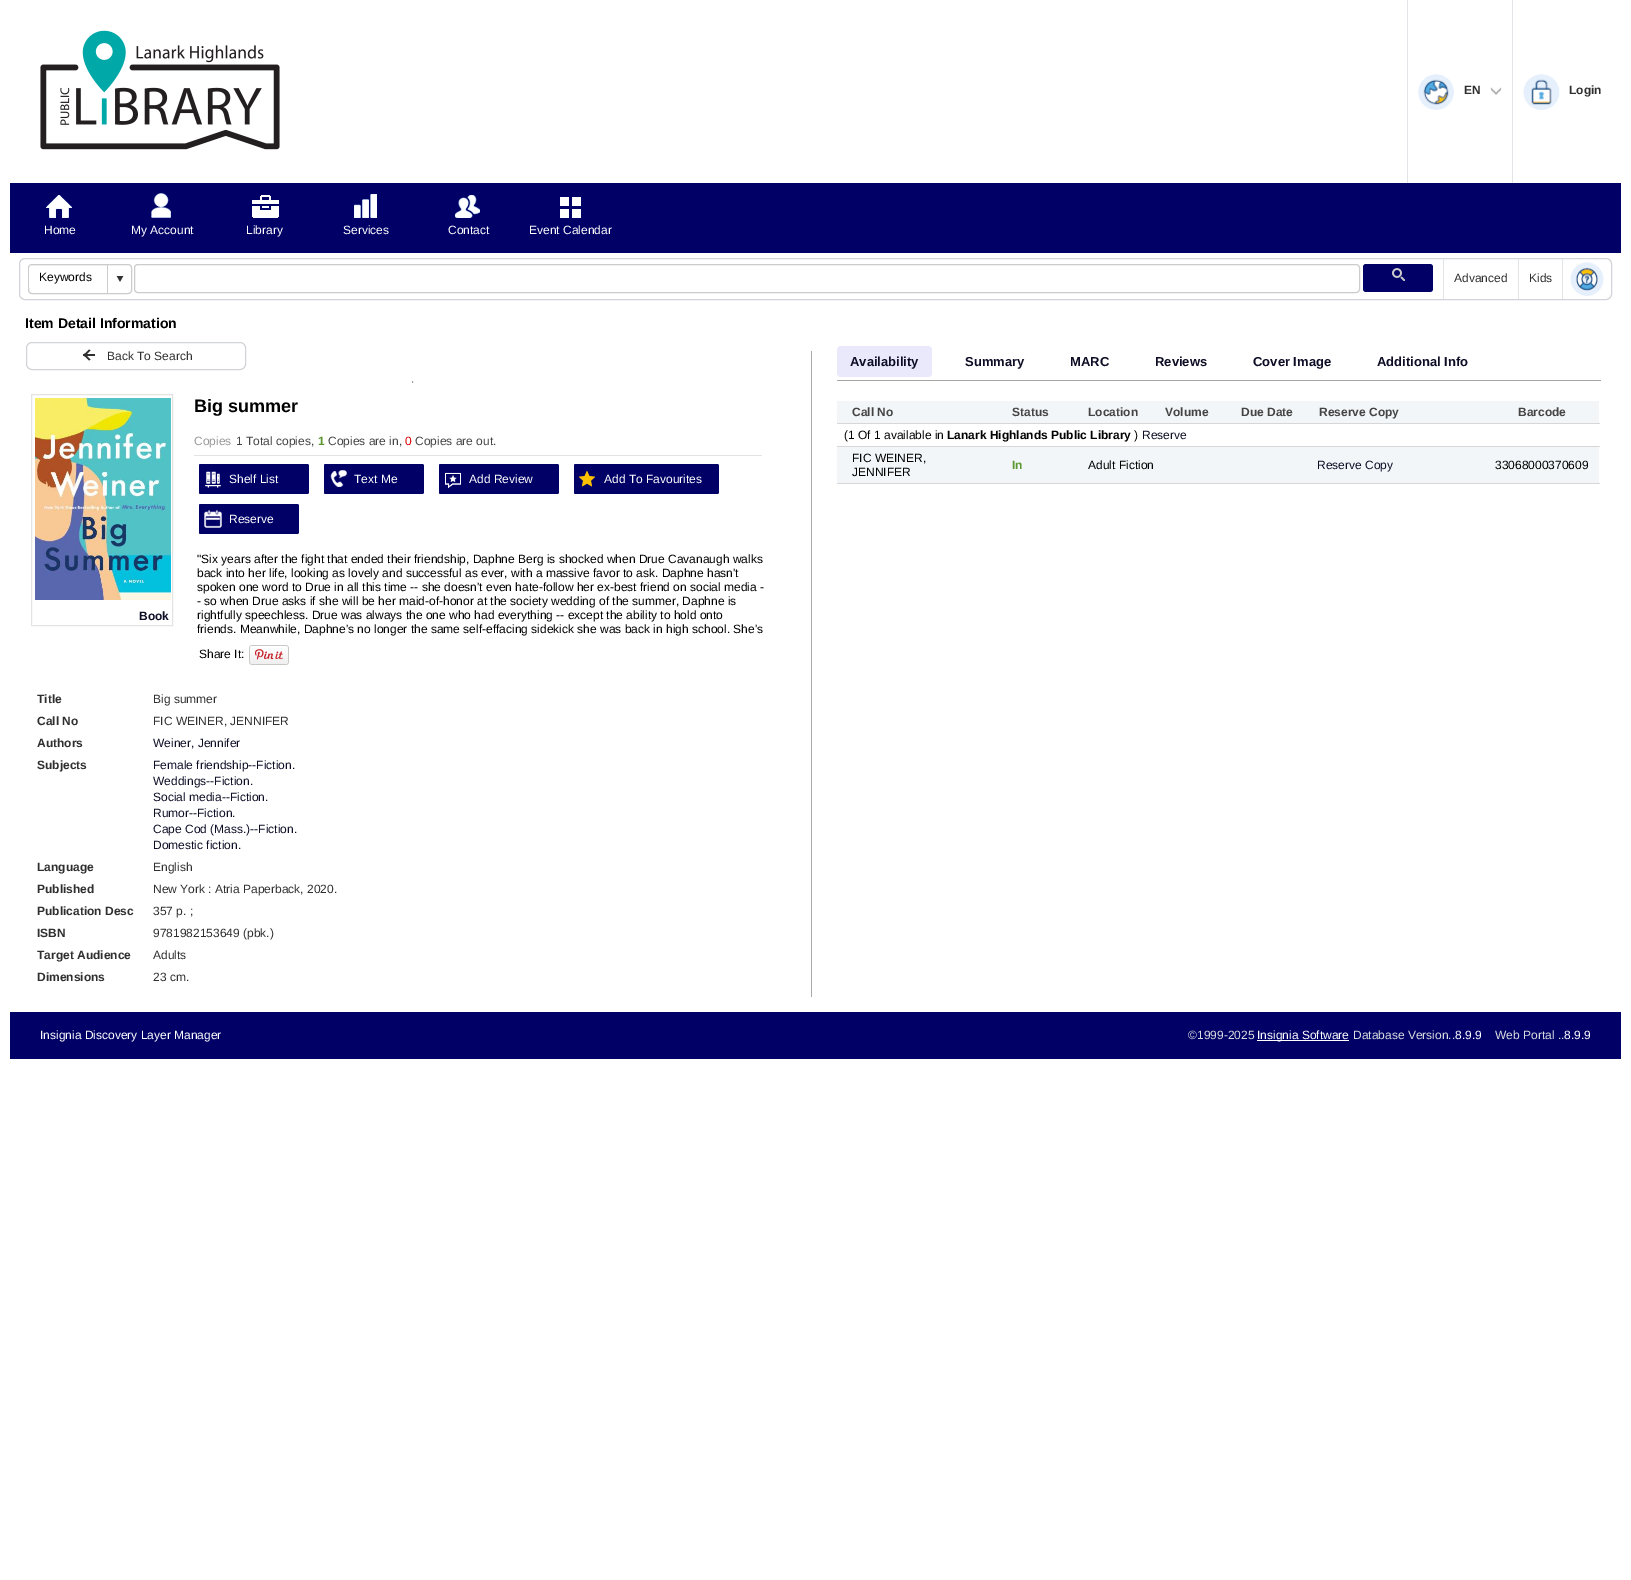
%!PS-Adobe-3.0
%%BoundingBox: 0 0 1631 1580
%%LanguageLevel: 3
%%Pages: 1
%%EndComments
%%BeginProlog
/setink { 3 { 255 div 3 1 roll } repeat setrgbcolor } def
/usefont { [ exch dup neg 0 0 3 -1 roll 0 0 ] selectfont } def
/drawtext { setink usefont moveto show } def
/fillbox { setink rectfill } def
/setalpha { dup .setfillconstantalpha .setstrokeconstantalpha } def
/rrect { 5 dict begin { /r /h /w /y /x } { exch def } forall
  x r add y moveto x w add y 2 copy h add r arct x w add y h add x 1 index r arct
  x y h add x y r arct x y 2 copy exch w add exch r arct closepath end } def
/drawimage { 5 dict begin { /h /w /y /x /name } { exch def } forall
  gsave x y translate w h scale
  w h 8 [w 0 0 h 0 0] name (r) file false 3 colorimage grestore end } def
%%EndProlog
%%BeginSetup
<< /PageSize [1631 1580] /PageUsesTransparency true >> setpagedevice
%%EndSetup
%%Page: 1 1
0 .pushpdf14devicefilter
0 1580 translate 1 -1 scale
4 setmiterlimit
0 0 1631 1580 255 255 255 fillbox
(assets/img1.rgb) 40 30 240 120 drawimage
1407 0 1 183 227 228 232 fillbox
(assets/img2.rgb) 1418 74 36 36 drawimage
(EN) 1464 94 /LiberationSans-Bold 12 47 47 47 drawtext
(assets/img3.rgb) 1490 87 12 8 drawimage
1512 0 1 183 227 228 232 fillbox
(assets/img4.rgb) 1523 74 37 36 drawimage
(Login) 1569 94 /LiberationSans-Bold 12 47 47 47 drawtext
10 183 1611 70 0 0 102 fillbox
(assets/img5.rgb) 46 195 26 23 drawimage
(Home) 44 234 /LiberationSans-Regular 12 255 255 255 drawtext
(assets/img6.rgb) 151 193 20 25 drawimage
(My Account) 131 234 /LiberationSans-Regular 12 255 255 255 drawtext
(assets/img7.rgb) 252 195 27 23 drawimage
(Library) 246 234 /LiberationSans-Regular 12 255 255 255 drawtext
(assets/img8.rgb) 354 194 23 24 drawimage
(Services) 343 234 /LiberationSans-Regular 12 255 255 255 drawtext
(assets/img9.rgb) 455 195 25 23 drawimage
(Contact) 448 234 /LiberationSans-Regular 12 255 255 255 drawtext
(assets/img10.rgb) 560 197 21 21 drawimage
(Event Calendar) 529 234 /LiberationSans-Regular 12 255 255 255 drawtext
211 212 216 setink
19.5 258.5 1592 41 5.5 rrect stroke
1443 259 1 40 227 228 232 fillbox
204 204 204 setink
28.5 264.5 103 29 3.5 rrect stroke
255 255 255 setink
32 265 moveto 108 265 lineto 108 289 lineto 32 289 lineto 30.5 289 29 287.5 29 286 curveto 29 268 lineto 29 266.5 30.5 265 32 265 curveto closepath fill
0.07 setalpha
0 0 0 setink
32 266 moveto 108 266 lineto 108 265 lineto 32 265 lineto 30 265 29 266 29 268 curveto 29 269 lineto 29 267 30 266 32 266 curveto closepath fill
1 setalpha
(Keywords) 39 281 /LiberationSans-Regular 12 0 0 0 drawtext
107 265 1 28 204 204 204 fillbox
(assets/img11.rgb) 116 276 8 6 drawimage
134.5 264.5 1225 28 3.5 rrect stroke
0 0 102 setink
1363 264 70 28 3 rrect fill
(assets/img12.rgb) 1392 268 13 13 drawimage
1518 259 1 40 227 228 232 fillbox
(Advanced) 1454 282 /LiberationSans-Regular 12 47 47 47 drawtext
1562 259 1 40 227 228 232 fillbox
(Kids) 1529 282 /LiberationSans-Regular 12 47 47 47 drawtext
(assets/img13.rgb) 1570 262 34 34 drawimage
(Item Detail Information) 25 328 /LiberationSans-Bold 14 0 0 0 drawtext
211 212 216 setink
26.5 342.5 219 27 5.5 rrect stroke
83 354 12 2 47 47 47 fillbox
84.5 353.5 moveto 90.5 359.5 lineto 89 360.5 lineto 83.5 355 lineto closepath fill
89 349.5 moveto 90.5 350.5 lineto 84.5 356.5 lineto 83.5 355 lineto closepath fill
(Back To Search) 107 360 /LiberationSans-Regular 12 47 47 47 drawtext
413 381 1 2 238 238 238 fillbox
412 382 2 1 238 238 238 fillbox
412 381 1 2 159 159 159 fillbox
227 227 227 setink
31.5 394.5 141 231 rectstroke
(assets/img14.rgb) 35 398 136 202 drawimage
(Book) 139 620 /LiberationSans-Bold 12 13 13 38 drawtext
(Big summer) 194 412 /LiberationSans-Bold 18 0 0 0 drawtext
194 455 568 1 227 227 227 fillbox
(Copies) 194 445 /LiberationSans-Regular 12 153 153 153 drawtext
(1 Total copies,) 236 445 /LiberationSans-Regular 12 68 68 68 drawtext
(1) 318 445 /LiberationSans-Bold 12 91 150 48 drawtext
(Copies are in,) 328 445 /LiberationSans-Regular 12 68 68 68 drawtext
(0) 405 445 /LiberationSans-Regular 12 220 0 0 drawtext
(Copies are out.) 415 445 /LiberationSans-Regular 12 68 68 68 drawtext
0 0 102 setink
199 464 110 30 2 rrect fill
199 464 30 30 2 rrect fill
(assets/img15.rgb) 205 471 16 17 drawimage
(Shelf List) 229 483 /LiberationSans-Regular 12 255 255 255 drawtext
0 0 102 setink
324 464 100 30 2 rrect fill
324 464 30 30 2 rrect fill
(assets/img16.rgb) 330 470 17 17 drawimage
(Text Me) 354 483 /LiberationSans-Regular 12 255 255 255 drawtext
0 0 102 setink
439 464 120 30 2 rrect fill
439 464 30 30 2 rrect fill
(assets/img17.rgb) 445 472 16 17 drawimage
(Add Review) 469 483 /LiberationSans-Regular 12 255 255 255 drawtext
0 0 102 setink
574 464 145 30 2 rrect fill
574 464 30 30 2 rrect fill
(assets/img18.rgb) 579 471 16 16 drawimage
(Add To Favourites) 604 483 /LiberationSans-Regular 12 255 255 255 drawtext
0 0 102 setink
199 504 100 30 2 rrect fill
199 504 30 30 2 rrect fill
(assets/img19.rgb) 204 510 18 18 drawimage
(Reserve) 229 523 /LiberationSans-Regular 12 255 255 255 drawtext
("Six years after the fight that ended their friendship, Daphne Berg is shocked when Drue Cavanaugh walks) 197 563 /LiberationSans-Regular 12 0 0 0 drawtext
(back into her life, looking as lovely and successful as ever, with a massive favor to ask. Daphne hasn't) 197 577 /LiberationSans-Regular 12 0 0 0 drawtext
(spoken one word to Drue in all this time -- she doesn't even hate-follow her ex-best friend on social media -) 197 591 /LiberationSans-Regular 12 0 0 0 drawtext
(- so when Drue asks if she will be her maid-of-honor at the society wedding of the summer, Daphne is) 197 605 /LiberationSans-Regular 12 0 0 0 drawtext
(rightfully speechless. Drue was always the one who had everything -- except the ability to hold onto) 197 619 /LiberationSans-Regular 12 0 0 0 drawtext
(friends. Meanwhile, Daphne's no longer the same self-effacing sidekick she was back in high school. She's) 197 633 /LiberationSans-Regular 12 0 0 0 drawtext
(Share It:) 199 658 /LiberationSans-Regular 12 0 0 0 drawtext
(assets/img20.rgb) 249 645 40 20 drawimage
(Title) 37 703 /LiberationSans-Bold 12 47 47 47 drawtext
(Big summer) 153 703 /LiberationSans-Regular 12 47 47 47 drawtext
(Call No) 37 725 /LiberationSans-Bold 12 47 47 47 drawtext
(FIC WEINER, JENNIFER) 153 725 /LiberationSans-Regular 12 47 47 47 drawtext
(Authors) 37 747 /LiberationSans-Bold 12 47 47 47 drawtext
(Weiner, Jennifer) 153 747 /LiberationSans-Regular 12 13 13 38 drawtext
(Subjects) 37 769 /LiberationSans-Bold 12 47 47 47 drawtext
(Female friendship--Fiction.) 153 769 /LiberationSans-Regular 12 13 13 38 drawtext
(Weddings--Fiction.) 153 785 /LiberationSans-Regular 12 13 13 38 drawtext
(Social media--Fiction.) 153 801 /LiberationSans-Regular 12 13 13 38 drawtext
(Rumor--Fiction.) 153 817 /LiberationSans-Regular 12 13 13 38 drawtext
(Cape Cod \(Mass.\)--Fiction.) 153 833 /LiberationSans-Regular 12 13 13 38 drawtext
(Domestic fiction.) 153 849 /LiberationSans-Regular 12 13 13 38 drawtext
(Language) 37 871 /LiberationSans-Bold 12 47 47 47 drawtext
(English) 153 871 /LiberationSans-Regular 12 47 47 47 drawtext
(Published) 37 893 /LiberationSans-Bold 12 47 47 47 drawtext
(New York : Atria Paperback, 2020.) 153 893 /LiberationSans-Regular 12 47 47 47 drawtext
(Publication Desc) 37 915 /LiberationSans-Bold 12 47 47 47 drawtext
(357 p. ;) 153 915 /LiberationSans-Regular 12 47 47 47 drawtext
(ISBN) 37 937 /LiberationSans-Bold 12 47 47 47 drawtext
(9781982153649 \(pbk.\)) 153 937 /LiberationSans-Regular 12 47 47 47 drawtext
(Target Audience) 37 959 /LiberationSans-Bold 12 47 47 47 drawtext
(Adults) 153 959 /LiberationSans-Regular 12 47 47 47 drawtext
(Dimensions) 37 981 /LiberationSans-Bold 12 47 47 47 drawtext
(23 cm.) 153 981 /LiberationSans-Regular 12 47 47 47 drawtext
811 351 1 646 169 169 169 fillbox
837 380 764 1 165 165 165 fillbox
233 233 251 setink
837 346 95 31 4 rrect fill
(Availability) 850 366 /LiberationSans-Bold 13 13 13 38 drawtext
(Summary) 965 366 /LiberationSans-Bold 13 13 13 38 drawtext
(MARC) 1070 366 /LiberationSans-Bold 13 13 13 38 drawtext
(Reviews) 1155 366 /LiberationSans-Bold 13 13 13 38 drawtext
(Cover Image) 1253 366 /LiberationSans-Bold 13 13 13 38 drawtext
(Additional Info) 1377 366 /LiberationSans-Bold 13 13 13 38 drawtext
837 401 762 22 242 246 248 fillbox
(Call No) 852 416 /LiberationSans-Bold 12 68 68 68 drawtext
(Status) 1012 416 /LiberationSans-Bold 12 68 68 68 drawtext
(Location) 1088 416 /LiberationSans-Bold 12 68 68 68 drawtext
(Volume) 1165 416 /LiberationSans-Bold 12 68 68 68 drawtext
(Due Date) 1241 416 /LiberationSans-Bold 12 68 68 68 drawtext
(Reserve Copy) 1319 416 /LiberationSans-Bold 12 68 68 68 drawtext
(Barcode) 1518 416 /LiberationSans-Bold 12 68 68 68 drawtext
837 423 763 1 216 215 215 fillbox
(\(1 Of 1 available in) 844 439 /LiberationSans-Regular 12 0 0 0 drawtext
(Lanark Highlands Public Library) 947 439 /LiberationSans-Bold 12 0 0 0 drawtext
(\)) 1134 439 /LiberationSans-Regular 12 0 0 0 drawtext
(Reserve) 1142 439 /LiberationSans-Regular 12 13 13 38 drawtext
837 447 762 36 242 246 248 fillbox
837 446 763 1 216 215 215 fillbox
(FIC WEINER,) 852 462 /LiberationSans-Regular 12 0 0 0 drawtext
(JENNIFER) 852 476 /LiberationSans-Regular 12 0 0 0 drawtext
(In) 1012 469 /LiberationSans-Bold 12 91 150 48 drawtext
(Adult Fiction) 1088 469 /LiberationSans-Regular 12 0 0 0 drawtext
(Reserve Copy) 1317 469 /LiberationSans-Regular 12 13 13 38 drawtext
(33068000370609) 1495 469 /LiberationSans-Regular 12 0 0 0 drawtext
837 483 763 1 216 215 215 fillbox
10 1012 1611 47 0 0 102 fillbox
(Insignia Discovery Layer Manager) 40 1039 /LiberationSans-Regular 12 255 255 255 drawtext
(©1999-2025) 1188 1039 /LiberationSans-Regular 12 217 220 222 drawtext
1257 1040 92 1 255 255 255 fillbox
(Insignia Software) 1257 1039 /LiberationSans-Regular 12 255 255 255 drawtext
(Database Version..) 1353 1039 /LiberationSans-Regular 12 217 220 222 drawtext
(8.9.9) 1455 1039 /LiberationSans-Regular 12 255 255 255 drawtext
(Web Portal ..) 1495 1039 /LiberationSans-Regular 12 217 220 222 drawtext
(8.9.9) 1564 1039 /LiberationSans-Regular 12 255 255 255 drawtext
.poppdf14devicefilter showpage
%%EOF
